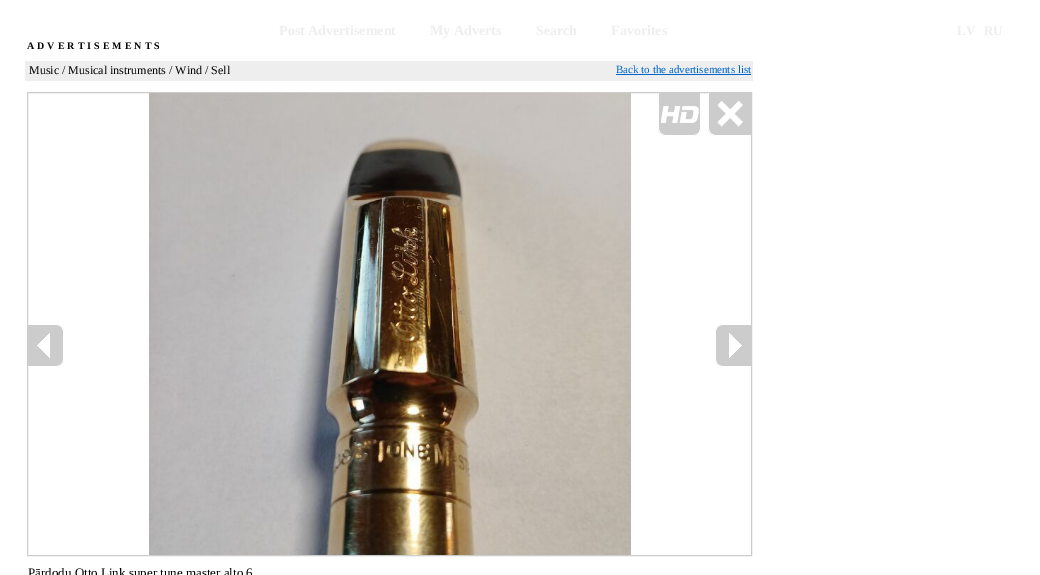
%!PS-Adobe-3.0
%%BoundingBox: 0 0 1040 575
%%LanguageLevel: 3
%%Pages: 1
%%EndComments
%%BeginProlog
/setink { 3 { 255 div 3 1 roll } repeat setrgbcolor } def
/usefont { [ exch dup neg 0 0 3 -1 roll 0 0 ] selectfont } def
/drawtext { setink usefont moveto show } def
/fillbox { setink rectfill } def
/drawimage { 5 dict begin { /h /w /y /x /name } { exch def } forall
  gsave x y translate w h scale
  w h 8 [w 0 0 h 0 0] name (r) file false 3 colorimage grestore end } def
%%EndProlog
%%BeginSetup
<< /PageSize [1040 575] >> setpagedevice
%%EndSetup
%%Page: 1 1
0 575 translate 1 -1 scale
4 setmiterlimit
0 0 1040 575 255 255 255 fillbox
(Post Advertisement) 279 35 /LiberationSerif-Bold 14 238 238 238 drawtext
(My Adverts) 430 35 /LiberationSerif-Bold 14 238 238 238 drawtext
(Search) 536 35 /LiberationSerif-Bold 14 238 238 238 drawtext
(Favorites) 611 35 /LiberationSerif-Bold 14 238 238 238 drawtext
(LV) 957 35 /LiberationSerif-Bold 13 238 238 238 drawtext
(RU) 984 35 /LiberationSerif-Bold 13 238 238 238 drawtext
/LiberationSerif-Bold 10 usefont
0 0 0 setink
27 49 moveto 3 0 (ADVERTISEMENTS) ashow
25 61 728 20 238 238 238 fillbox
(Music / Musical instruments / Wind / Sell) 29 74 /LiberationSerif-Regular 12 0 0 0 drawtext
(Back to the advertisements list) 616 73 /LiberationSerif-Regular 11 0 102 204 drawtext
616 74 135 1 0 102 204 fillbox
204 204 204 setink
27.5 92.5 724 463 rectstroke
(assets/img1.rgb) 149 93 482 462 drawimage
(assets/img2.rgb) 658 93 43 43 drawimage
(assets/img3.rgb) 708 93 43 43 drawimage
(assets/img4.rgb) 28 324 36 43 drawimage
(assets/img5.rgb) 715 324 36 43 drawimage
(Pārdodu Otto Link super tune master alto 6) 28 577 /LiberationSerif-Regular 13 0 0 0 drawtext
showpage
%%EOF
